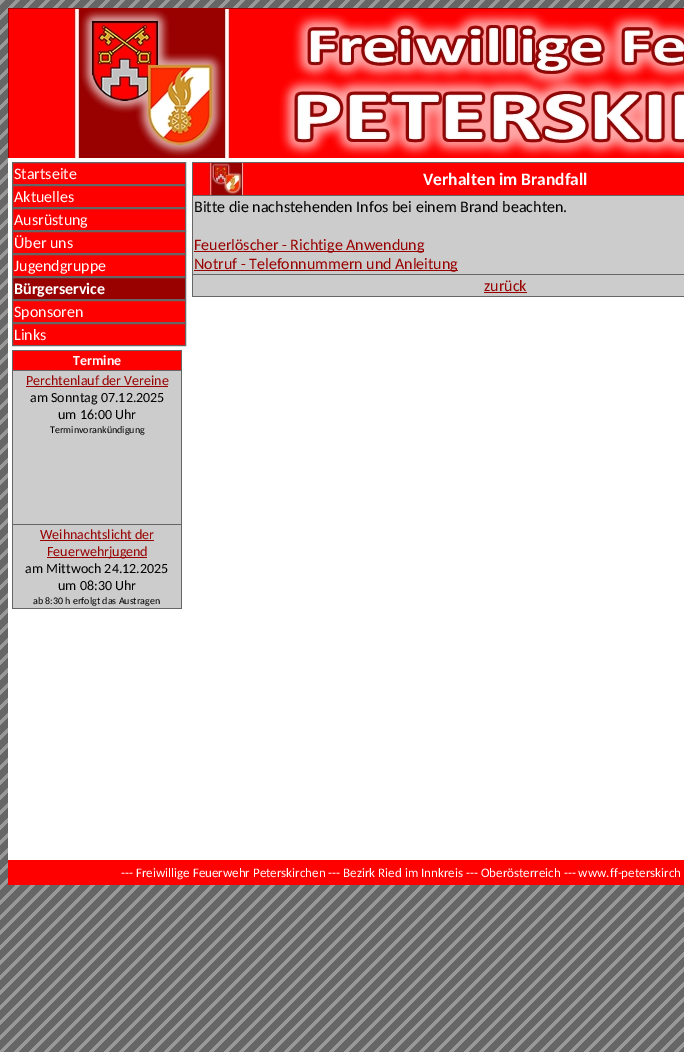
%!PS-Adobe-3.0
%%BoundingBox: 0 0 684 1052
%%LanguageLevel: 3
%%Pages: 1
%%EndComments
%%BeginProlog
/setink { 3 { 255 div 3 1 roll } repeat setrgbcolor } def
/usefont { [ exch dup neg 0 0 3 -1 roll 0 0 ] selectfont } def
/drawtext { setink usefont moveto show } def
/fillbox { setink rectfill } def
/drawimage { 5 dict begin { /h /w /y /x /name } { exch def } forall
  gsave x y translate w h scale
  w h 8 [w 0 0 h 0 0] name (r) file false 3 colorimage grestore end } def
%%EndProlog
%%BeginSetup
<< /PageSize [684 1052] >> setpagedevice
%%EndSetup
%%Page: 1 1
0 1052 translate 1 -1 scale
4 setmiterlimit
0 0 684 1052 255 255 255 fillbox
(assets/img1.rgb) 0 0 684 1052 drawimage
153 0 0 setink
8.5 8.5 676 151 rectstroke
(assets/img2.rgb) 9 9 675 149 drawimage
8 158 676 702 255 255 255 fillbox
255 0 0 setink
12.5 162.5 moveto 185.5 162.5 lineto 185.5 184.5 lineto 12.5 184.5 lineto closepath gsave fill grestore
102 102 102 setink
stroke
(Startseite) 14 179 /Carlito-Regular 16 255 255 255 drawtext
255 0 0 setink
12.5 185.5 moveto 185.5 185.5 lineto 185.5 207.5 lineto 12.5 207.5 lineto closepath gsave fill grestore
102 102 102 setink
stroke
(Aktuelles) 14 202 /Carlito-Regular 16 255 255 255 drawtext
255 0 0 setink
12.5 208.5 moveto 185.5 208.5 lineto 185.5 230.5 lineto 12.5 230.5 lineto closepath gsave fill grestore
102 102 102 setink
stroke
(Ausrüstung) 14 225 /Carlito-Regular 16 255 255 255 drawtext
255 0 0 setink
12.5 231.5 moveto 185.5 231.5 lineto 185.5 253.5 lineto 12.5 253.5 lineto closepath gsave fill grestore
102 102 102 setink
stroke
(Über uns) 14 248 /Carlito-Regular 16 255 255 255 drawtext
255 0 0 setink
12.5 254.5 moveto 185.5 254.5 lineto 185.5 276.5 lineto 12.5 276.5 lineto closepath gsave fill grestore
102 102 102 setink
stroke
(Jugendgruppe) 14 271 /Carlito-Regular 16 255 255 255 drawtext
153 0 0 setink
12.5 277.5 moveto 185.5 277.5 lineto 185.5 299.5 lineto 12.5 299.5 lineto closepath gsave fill grestore
102 102 102 setink
stroke
(Bürgerservice) 14 294 /Carlito-Bold 16 255 255 255 drawtext
255 0 0 setink
12.5 300.5 moveto 185.5 300.5 lineto 185.5 322.5 lineto 12.5 322.5 lineto closepath gsave fill grestore
102 102 102 setink
stroke
(Sponsoren) 14 317 /Carlito-Regular 16 255 255 255 drawtext
255 0 0 setink
12.5 323.5 moveto 185.5 323.5 lineto 185.5 345.5 lineto 12.5 345.5 lineto closepath gsave fill grestore
102 102 102 setink
stroke
(Links) 14 340 /Carlito-Regular 16 255 255 255 drawtext
13 371 168 237 204 204 204 fillbox
13 351 168 19 255 0 0 fillbox
12 350 170 1 102 102 102 fillbox
12 370 170 1 102 102 102 fillbox
12 524 170 1 102 102 102 fillbox
181 524 1 85 102 102 102 fillbox
181 370 1 155 102 102 102 fillbox
181 350 1 21 102 102 102 fillbox
12 608 170 1 102 102 102 fillbox
12 524 1 85 102 102 102 fillbox
12 370 1 155 102 102 102 fillbox
12 350 1 21 102 102 102 fillbox
(Termine) 73 365 /Carlito-Bold 14 255 255 255 drawtext
(Perchtenlauf der Vereine) 26 385 /Carlito-Regular 14 153 0 0 drawtext
26 386 142 1 153 0 0 fillbox
(am Sonntag 07.12.2025) 30 402 /Carlito-Regular 14 0 0 0 drawtext
(um 16:00 Uhr) 58 419 /Carlito-Regular 14 0 0 0 drawtext
(Terminvorankündigung) 50 433 /Carlito-Regular 10 0 0 0 drawtext
(Weihnachtslicht der) 40 539 /Carlito-Regular 14 153 0 0 drawtext
40 540 114 1 153 0 0 fillbox
47 557 100 1 153 0 0 fillbox
(Feuerwehrjugend) 47 556 /Carlito-Regular 14 153 0 0 drawtext
(am Mittwoch 24.12.2025) 25 573 /Carlito-Regular 14 0 0 0 drawtext
(um 08:30 Uhr) 58 590 /Carlito-Regular 14 0 0 0 drawtext
(ab 8:30 h erfolgt das Austragen) 33 604 /Carlito-Regular 10 0 0 0 drawtext
193 196 491 100 204 204 204 fillbox
193 163 491 32 255 0 0 fillbox
(assets/img3.rgb) 208 163 36 32 drawimage
192 162 492 1 102 102 102 fillbox
192 195 492 1 102 102 102 fillbox
192 274 492 1 102 102 102 fillbox
192 296 492 1 102 102 102 fillbox
192 274 1 23 102 102 102 fillbox
192 195 1 80 102 102 102 fillbox
192 162 1 34 102 102 102 fillbox
(Verhalten im Brandfall) 423 185 /Carlito-Bold 17.5 255 255 255 drawtext
(Bitte die nachstehenden Infos bei einem Brand beachten.) 194 212 /Carlito-Regular 16 0 0 0 drawtext
194 251 230 1 153 0 0 fillbox
(Feuerlöscher - Richtige Anwendung) 194 250 /Carlito-Regular 16 153 0 0 drawtext
194 270 264 1 153 0 0 fillbox
(Notruf - Telefonnummern und Anleitung) 194 269 /Carlito-Regular 16 153 0 0 drawtext
(zurück) 484 291 /Carlito-Regular 16 153 0 0 drawtext
484 292 43 1 153 0 0 fillbox
8 860 676 25 255 0 0 fillbox
(--- Freiwillige Feuerwehr Peterskirchen --- Bezirk Ried im Innkreis --- Oberösterreich --- www.ff-peterskirch) 121 877 /Carlito-Regular 13 255 255 255 drawtext
showpage
%%EOF
